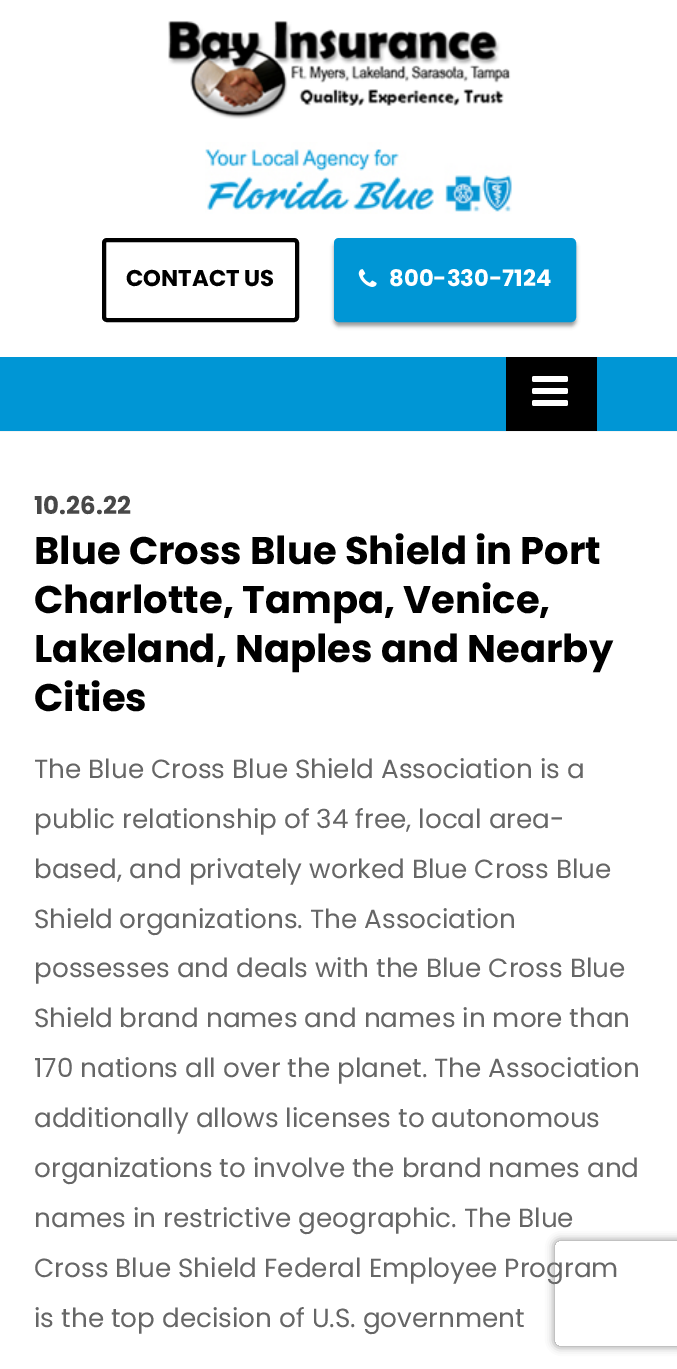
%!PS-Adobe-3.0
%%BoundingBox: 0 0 677 1369
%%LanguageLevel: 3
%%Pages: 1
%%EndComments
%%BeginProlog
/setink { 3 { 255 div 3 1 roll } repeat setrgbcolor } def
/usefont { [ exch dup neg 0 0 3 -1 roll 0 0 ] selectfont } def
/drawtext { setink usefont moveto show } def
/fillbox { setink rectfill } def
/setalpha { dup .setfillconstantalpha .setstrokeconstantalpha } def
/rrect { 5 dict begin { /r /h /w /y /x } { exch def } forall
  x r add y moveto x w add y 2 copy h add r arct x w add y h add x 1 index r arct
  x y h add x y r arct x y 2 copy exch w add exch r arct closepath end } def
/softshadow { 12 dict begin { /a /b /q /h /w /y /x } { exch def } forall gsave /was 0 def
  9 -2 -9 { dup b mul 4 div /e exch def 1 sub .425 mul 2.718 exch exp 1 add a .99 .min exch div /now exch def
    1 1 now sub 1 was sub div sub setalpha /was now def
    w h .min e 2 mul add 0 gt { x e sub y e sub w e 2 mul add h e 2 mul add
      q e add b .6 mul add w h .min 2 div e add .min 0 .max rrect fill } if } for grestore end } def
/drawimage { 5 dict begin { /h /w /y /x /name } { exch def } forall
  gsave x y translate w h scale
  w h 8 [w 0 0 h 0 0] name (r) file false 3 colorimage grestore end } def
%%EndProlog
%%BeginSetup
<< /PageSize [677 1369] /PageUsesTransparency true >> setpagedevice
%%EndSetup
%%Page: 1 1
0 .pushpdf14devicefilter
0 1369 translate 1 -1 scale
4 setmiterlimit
0 0 677 1369 255 255 255 fillbox
0 431 677 1 244 244 244 fillbox
(assets/img1.rgb) 168 20 343 99 drawimage
(assets/img2.rgb) 205 142 307 72 drawimage
0 0 0 setink
4 setlinewidth
104 240 193 80 3 rrect stroke
(CONTACT US) 126 286 /Poppins-Bold 22.75 0 0 0 drawtext
153 153 153 setink
334 242 242 84 5 2 1 softshadow
0 150 213 setink
336 240 238 80 3 rrect gsave fill grestore
stroke
(assets/img3.rgb) 358 269 19 18 drawimage
(800-330-7124) 389 286 /Poppins-Bold 22.75 255 255 255 drawtext
0 357 677 74 0 150 213 fillbox
506 357 91 74 0 0 0 fillbox
(assets/img4.rgb) 532 376 36 30 drawimage
(10.26.22) 34 514 /Poppins-Bold 24.5 72 72 72 drawtext
(Blue Cross Blue Shield in Port) 34 564 /Poppins-Bold 38.5 0 0 0 drawtext
(Charlotte, Tampa, Venice,) 34 613 /Poppins-Bold 38.5 0 0 0 drawtext
(Lakeland, Naples and Nearby) 34 662 /Poppins-Bold 38.5 0 0 0 drawtext
(Cities) 34 711 /Poppins-Bold 38.5 0 0 0 drawtext
(The Blue Cross Blue Shield Association is a) 34 778 /Poppins-Regular 26.25 102 102 102 drawtext
(public relationship of 34 free, local area-) 34 828 /Poppins-Regular 26.25 102 102 102 drawtext
(based, and privately worked Blue Cross Blue) 34 878 /Poppins-Regular 26.25 102 102 102 drawtext
(Shield) 34 928 /Poppins-Regular 26.25 102 102 102 drawtext
(organizations. The Association) 119 928 /Poppins-Regular 26.25 102 102 102 drawtext
(possesses and deals with the Blue Cross Blue) 34 977 /Poppins-Regular 26.25 102 102 102 drawtext
(Shield) 34 1027 /Poppins-Regular 26.25 102 102 102 drawtext
(brand names and names in more than) 119 1027 /Poppins-Regular 26.25 102 102 102 drawtext
(170 nations all over the planet. The Association) 34 1077 /Poppins-Regular 26.25 102 102 102 drawtext
(additionally allows licenses to autonomous) 34 1127 /Poppins-Regular 26.25 102 102 102 drawtext
(organizations to involve the brand names and) 34 1177 /Poppins-Regular 26.25 102 102 102 drawtext
(names in restrictive geographic. The Blue) 34 1227 /Poppins-Regular 26.25 102 102 102 drawtext
(Cross Blue Shield Federal Employee Program) 34 1277 /Poppins-Regular 26.25 102 102 102 drawtext
(is the top decision of U.S. government) 34 1327 /Poppins-Regular 26.25 102 102 102 drawtext
gsave
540 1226 moveto 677 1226 lineto 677 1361 lineto 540 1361 lineto closepath 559 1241 moveto 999 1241 lineto 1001 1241 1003 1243 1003 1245 curveto 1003 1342 lineto 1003 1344 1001 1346 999 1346 curveto 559 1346 lineto 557 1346 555 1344 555 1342 curveto 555 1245 lineto 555 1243 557 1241 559 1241 curveto closepath eoclip newpath
128 128 128 setink
555 1241 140 105 4 4.5 1 softshadow
grestore
.poppdf14devicefilter showpage
%%EOF
